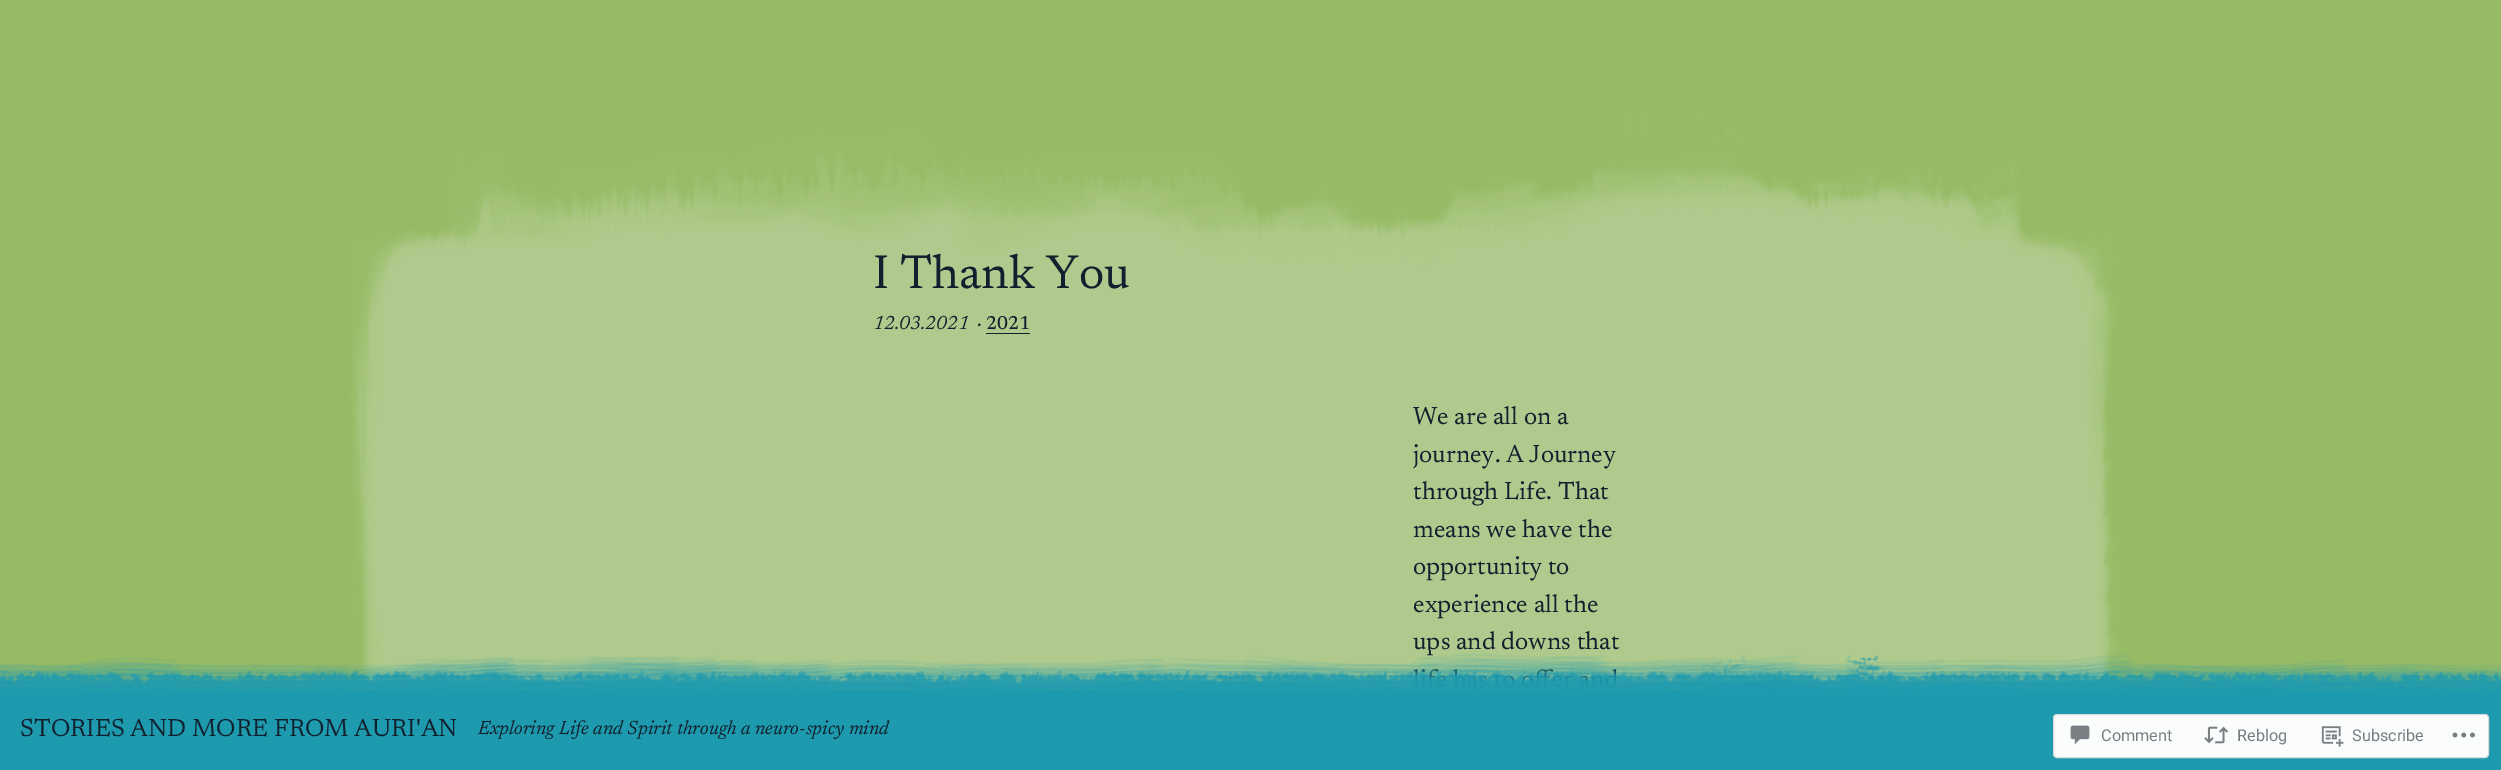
%!PS-Adobe-3.0
%%BoundingBox: 0 0 2501 770
%%LanguageLevel: 3
%%Pages: 1
%%EndComments
%%BeginProlog
/setink { 3 { 255 div 3 1 roll } repeat setrgbcolor } def
/usefont { [ exch dup neg 0 0 3 -1 roll 0 0 ] selectfont } def
/drawtext { setink usefont moveto show } def
/fillbox { setink rectfill } def
/setalpha { dup .setfillconstantalpha .setstrokeconstantalpha } def
/rrect { 5 dict begin { /r /h /w /y /x } { exch def } forall
  x r add y moveto x w add y 2 copy h add r arct x w add y h add x 1 index r arct
  x y h add x y r arct x y 2 copy exch w add exch r arct closepath end } def
/drawimage { 5 dict begin { /h /w /y /x /name } { exch def } forall
  gsave x y translate w h scale
  w h 8 [w 0 0 h 0 0] name (r) file false 3 colorimage grestore end } def
%%EndProlog
%%BeginSetup
<< /PageSize [2501 770] /PageUsesTransparency true >> setpagedevice
%%EndSetup
%%Page: 1 1
0 .pushpdf14devicefilter
0 770 translate 1 -1 scale
4 setmiterlimit
0 0 2501 770 151 186 101 fillbox
(assets/img1.rgb) 350 113 1769 577 drawimage
(I Thank You) 873 288 /Newsreader-Regular 48 17 32 46 drawtext
(12.03.2021) 873 329 /Newsreader-Italic 19.25 17 32 46 drawtext
(· 2021) 977 329 /Newsreader-Medium 19.25 17 32 46 drawtext
986 333 44 1 17 32 46 fillbox
(We are all on a) 1413 424 /Newsreader-Regular 25 17 32 46 drawtext
(journey. A Journey) 1413 462 /Newsreader-Regular 25 17 32 46 drawtext
(through Life. That) 1413 499 /Newsreader-Regular 25 17 32 46 drawtext
(means we have the) 1413 537 /Newsreader-Regular 25 17 32 46 drawtext
(opportunity to) 1413 574 /Newsreader-Regular 25 17 32 46 drawtext
(experience all the) 1413 612 /Newsreader-Regular 25 17 32 46 drawtext
(ups and downs that) 1413 649 /Newsreader-Regular 25 17 32 46 drawtext
0 690 2501 80 30 154 174 fillbox
(assets/img2.rgb) 0 650 2501 40 drawimage
(STORIES AND MORE FROM AURI'AN) 20 736 /Newsreader-Regular 25 17 32 46 drawtext
(Exploring Life and Spirit through a neuro-spicy mind) 478 734 /Newsreader-Italic 19.25 17 32 46 drawtext
2364 725 20 1 17 32 46 fillbox
2364 734 20 2 17 32 46 fillbox
(assets/img3.rgb) 2433 721 19 19 drawimage
0.98 setalpha
255 255 255 setink
2053.5 714.5 435 43 3.5 rrect fill
1 setalpha
216 219 221 setink
2053.5 714.5 435 43 3.5 rrect stroke
(assets/img4.rgb) 2070 725 20 20 drawimage
(Comment) 2101 741 /Roboto-Regular 16.25 118 125 131 drawtext
(assets/img5.rgb) 2204 726 25 18 drawimage
(Reblog) 2237 741 /Roboto-Regular 16.25 118 125 131 drawtext
(assets/img6.rgb) 2321 726 23 21 drawimage
(Subscribe) 2352 741 /Roboto-Regular 16.25 118 125 131 drawtext
(assets/img7.rgb) 2452 732 23 6 drawimage
.poppdf14devicefilter showpage
%%EOF
